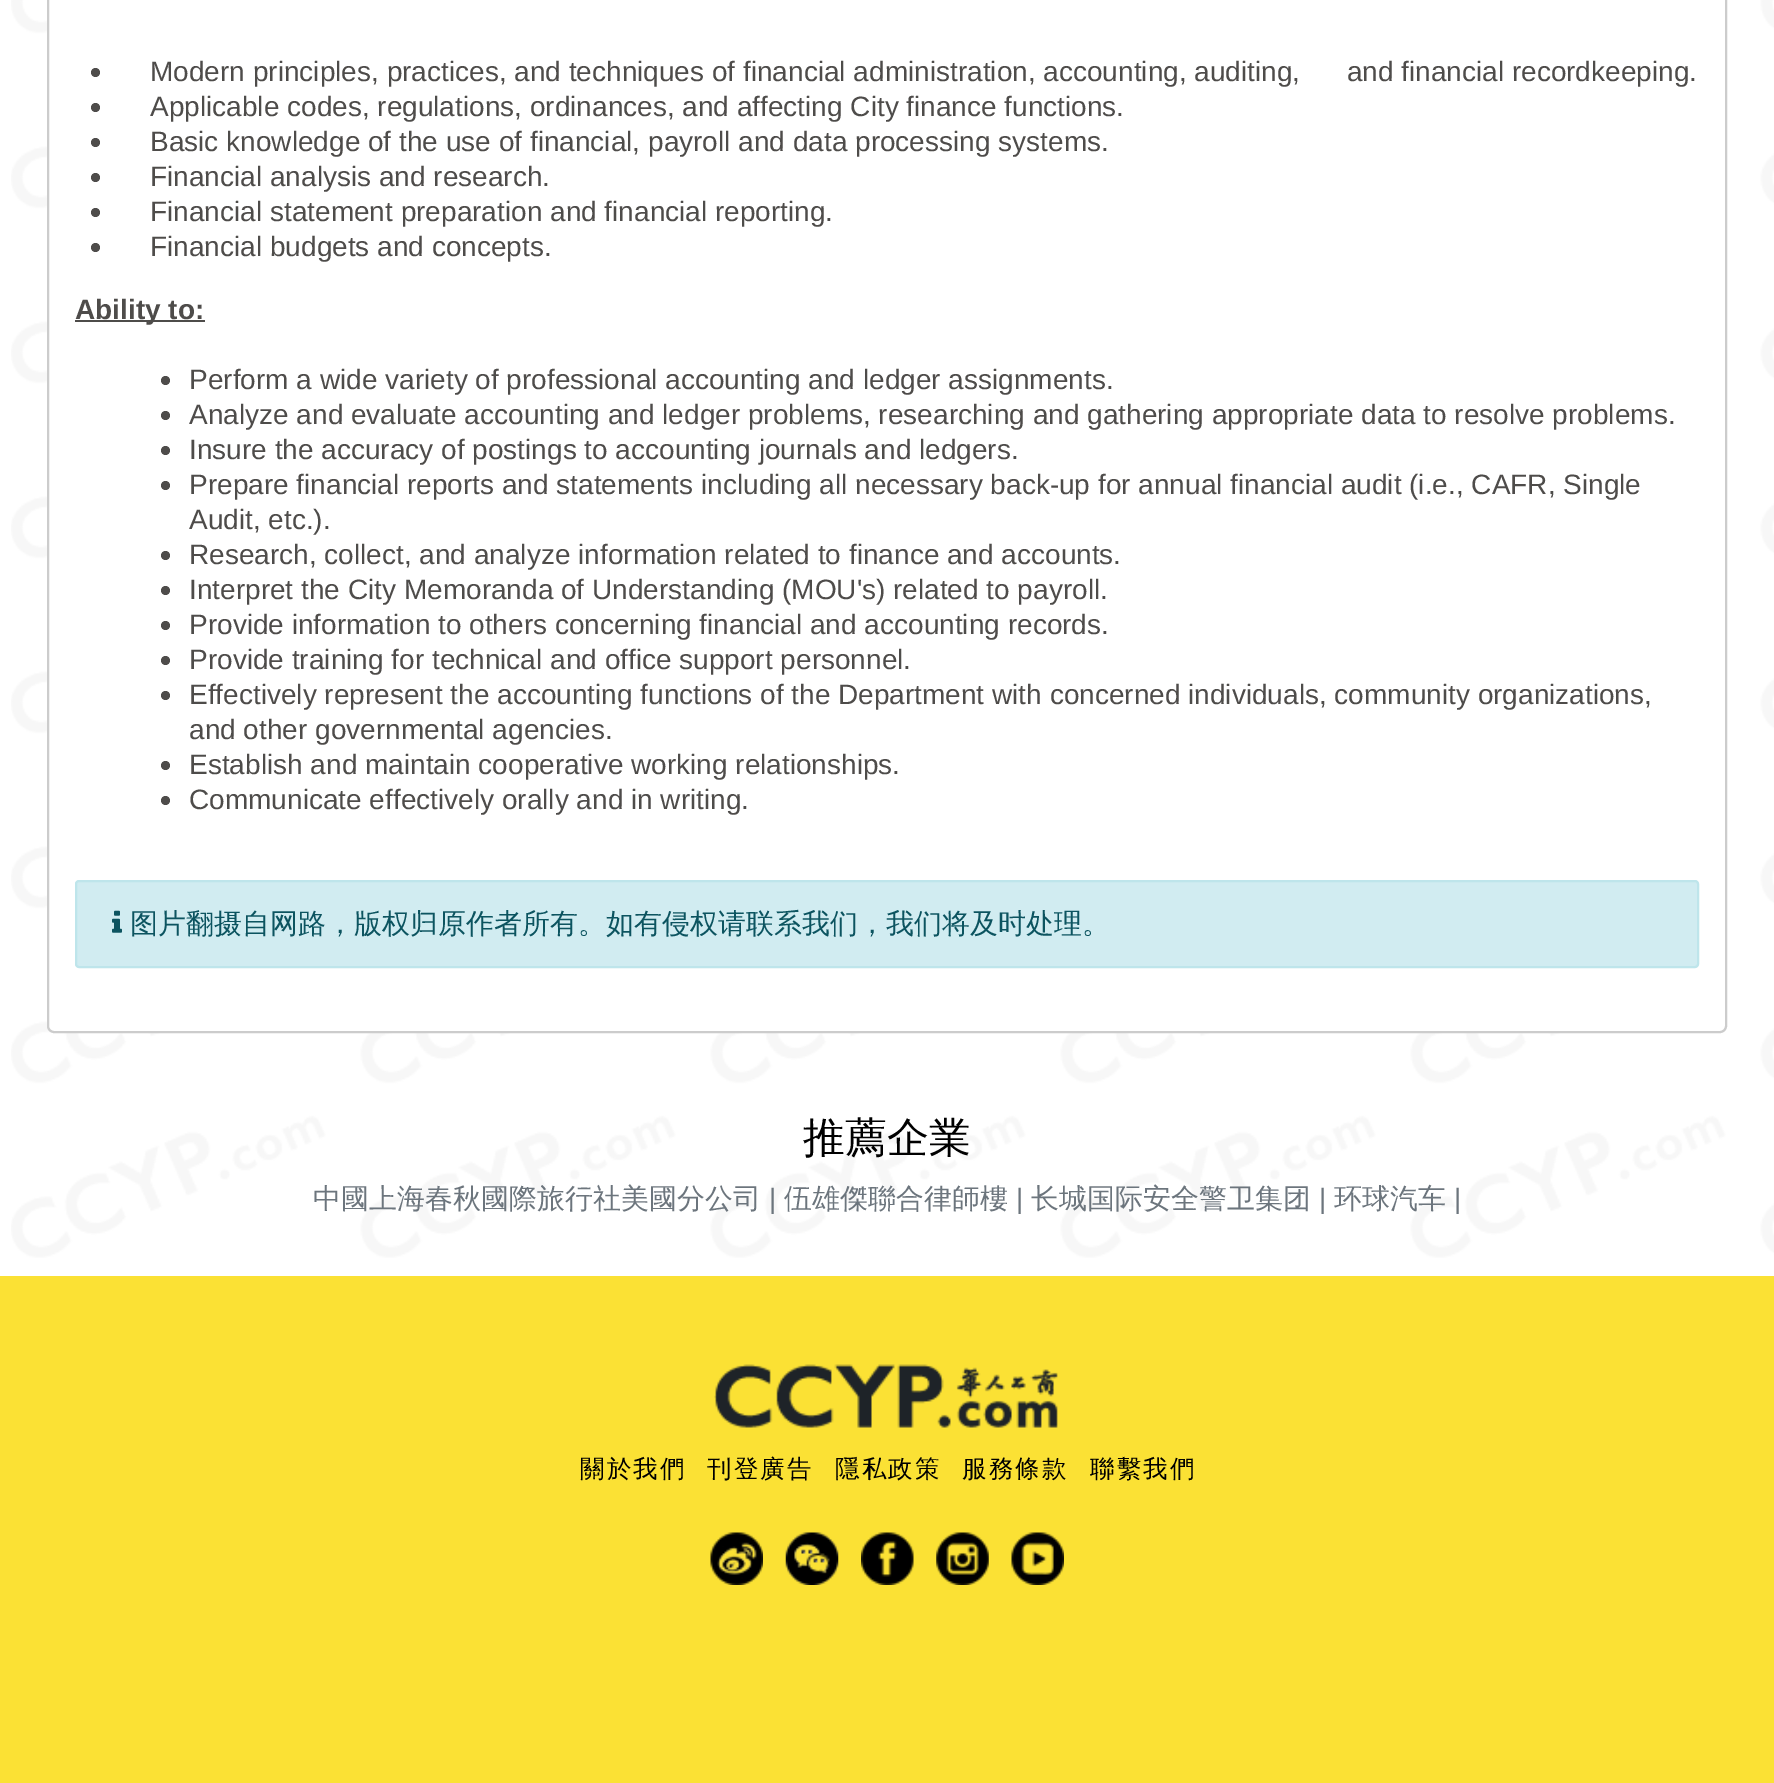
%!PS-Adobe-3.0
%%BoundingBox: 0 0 1774 1783
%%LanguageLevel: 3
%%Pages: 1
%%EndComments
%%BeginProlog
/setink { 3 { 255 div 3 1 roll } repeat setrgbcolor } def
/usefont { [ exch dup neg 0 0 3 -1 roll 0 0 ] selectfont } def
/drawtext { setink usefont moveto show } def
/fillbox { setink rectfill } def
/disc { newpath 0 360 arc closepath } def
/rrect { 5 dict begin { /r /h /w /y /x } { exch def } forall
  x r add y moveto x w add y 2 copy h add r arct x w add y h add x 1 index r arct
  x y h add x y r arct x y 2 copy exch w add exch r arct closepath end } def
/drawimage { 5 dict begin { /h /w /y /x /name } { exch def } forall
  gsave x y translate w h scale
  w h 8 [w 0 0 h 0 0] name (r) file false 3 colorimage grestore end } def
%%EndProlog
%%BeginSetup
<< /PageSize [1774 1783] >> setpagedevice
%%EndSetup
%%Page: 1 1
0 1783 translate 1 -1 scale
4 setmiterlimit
0 0 1774 1783 255 255 255 fillbox
(assets/img1.rgb) 11 0 1763 1258 drawimage
48 -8 1678 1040 6 rrect gsave fill grestore
204 204 204 setink
2 setlinewidth
stroke
78 76 74 setink
95.5 72.5 4.5 disc fill
(Modern principles, practices, and techniques of financial administration, accounting, auditing,      and financial recordkeeping.) 150 81 /LiberationSans-Regular 28 78 76 74 drawtext
95.5 107.5 4.5 disc fill
(Applicable codes, regulations, ordinances, and affecting City finance functions.) 150 116 /LiberationSans-Regular 28 78 76 74 drawtext
95.5 142.5 4.5 disc fill
(Basic knowledge of the use of financial, payroll and data processing systems.) 150 151 /LiberationSans-Regular 28 78 76 74 drawtext
95.5 177.5 4.5 disc fill
(Financial analysis and research.) 150 186 /LiberationSans-Regular 28 78 76 74 drawtext
95.5 212.5 4.5 disc fill
(Financial statement preparation and financial reporting.) 150 221 /LiberationSans-Regular 28 78 76 74 drawtext
95.5 247.5 4.5 disc fill
(Financial budgets and concepts.) 150 256 /LiberationSans-Regular 28 78 76 74 drawtext
75 320 130 2 78 76 74 fillbox
(Ability to:) 75 319 /LiberationSans-Bold 28 78 76 74 drawtext
165.5 380.5 4.5 disc fill
(Perform a wide variety of professional accounting and ledger assignments.) 189 389 /LiberationSans-Regular 28 78 76 74 drawtext
165.5 415.5 4.5 disc fill
(Analyze and evaluate accounting and ledger problems, researching and gathering appropriate data to resolve problems.) 189 424 /LiberationSans-Regular 28 78 76 74 drawtext
165.5 450.5 4.5 disc fill
(Insure the accuracy of postings to accounting journals and ledgers.) 189 459 /LiberationSans-Regular 28 78 76 74 drawtext
165.5 485.5 4.5 disc fill
(Prepare financial reports and statements including all necessary back-up for annual financial audit \(i.e., CAFR, Single) 189 494 /LiberationSans-Regular 28 78 76 74 drawtext
(Audit, etc.\).) 189 529 /LiberationSans-Regular 28 78 76 74 drawtext
165.5 555.5 4.5 disc fill
(Research, collect, and analyze information related to finance and accounts.) 189 564 /LiberationSans-Regular 28 78 76 74 drawtext
165.5 590.5 4.5 disc fill
(Interpret the City Memoranda of Understanding \(MOU's\) related to payroll.) 189 599 /LiberationSans-Regular 28 78 76 74 drawtext
165.5 625.5 4.5 disc fill
(Provide information to others concerning financial and accounting records.) 189 634 /LiberationSans-Regular 28 78 76 74 drawtext
165.5 660.5 4.5 disc fill
(Provide training for technical and office support personnel.) 189 669 /LiberationSans-Regular 28 78 76 74 drawtext
165.5 695.5 4.5 disc fill
(Effectively represent the accounting functions of the Department with concerned individuals, community organizations,) 189 704 /LiberationSans-Regular 28 78 76 74 drawtext
(and other governmental agencies.) 189 739 /LiberationSans-Regular 28 78 76 74 drawtext
165.5 765.5 4.5 disc fill
(Establish and maintain cooperative working relationships.) 189 774 /LiberationSans-Regular 28 78 76 74 drawtext
165.5 800.5 4.5 disc fill
(Communicate effectively orally and in writing.) 189 809 /LiberationSans-Regular 28 78 76 74 drawtext
209 236 241 setink
76 881 1622 86 3 rrect gsave fill grestore
190 229 235 setink
stroke
(assets/img2.rgb) 112 910 10 23 drawimage
(图片翻摄自网路，版权归原作者所有。如有侵权请联系我们，我们将及时处理。) 130 933 /WenQuanYiZenHei-Medium 28 12 84 96 drawtext
(推薦企業) 803 1152 /WenQuanYiZenHei-Medium 42 0 0 0 drawtext
(中國上海春秋國際旅行社美國分公司) 313 1208 /WenQuanYiZenHei-Medium 28 108 117 125 drawtext
(|) 769 1208 /LiberationSans-Regular 28 108 117 125 drawtext
(伍雄傑聯合律師樓) 784 1208 /WenQuanYiZenHei-Medium 28 108 117 125 drawtext
(|) 1016 1208 /LiberationSans-Regular 28 108 117 125 drawtext
(长城国际安全警卫集团) 1031 1208 /WenQuanYiZenHei-Medium 28 108 117 125 drawtext
(|) 1319 1208 /LiberationSans-Regular 28 108 117 125 drawtext
(环球汽车) 1334 1208 /WenQuanYiZenHei-Medium 28 108 117 125 drawtext
(|) 1454 1208 /LiberationSans-Regular 28 108 117 125 drawtext
0 1276 1774 507 251 225 52 fillbox
(assets/img3.rgb) 714 1364 344 64 drawimage
/WenQuanYiZenHei-Medium 24.5 usefont
0 0 0 setink
580 1477 moveto 2 0 (關於我們) ashow
707 1477 moveto 2 0 (刊登廣告) ashow
835 1477 moveto 2 0 (隱私政策) ashow
962 1477 moveto 2 0 (服務條款) ashow
1090 1477 moveto 2 0 (聯繫我們) ashow
(assets/img4.rgb) 710 1532 53 53 drawimage
(assets/img5.rgb) 785 1532 54 53 drawimage
(assets/img6.rgb) 861 1532 53 53 drawimage
(assets/img7.rgb) 936 1532 53 53 drawimage
(assets/img8.rgb) 1011 1532 53 53 drawimage
showpage
%%EOF
